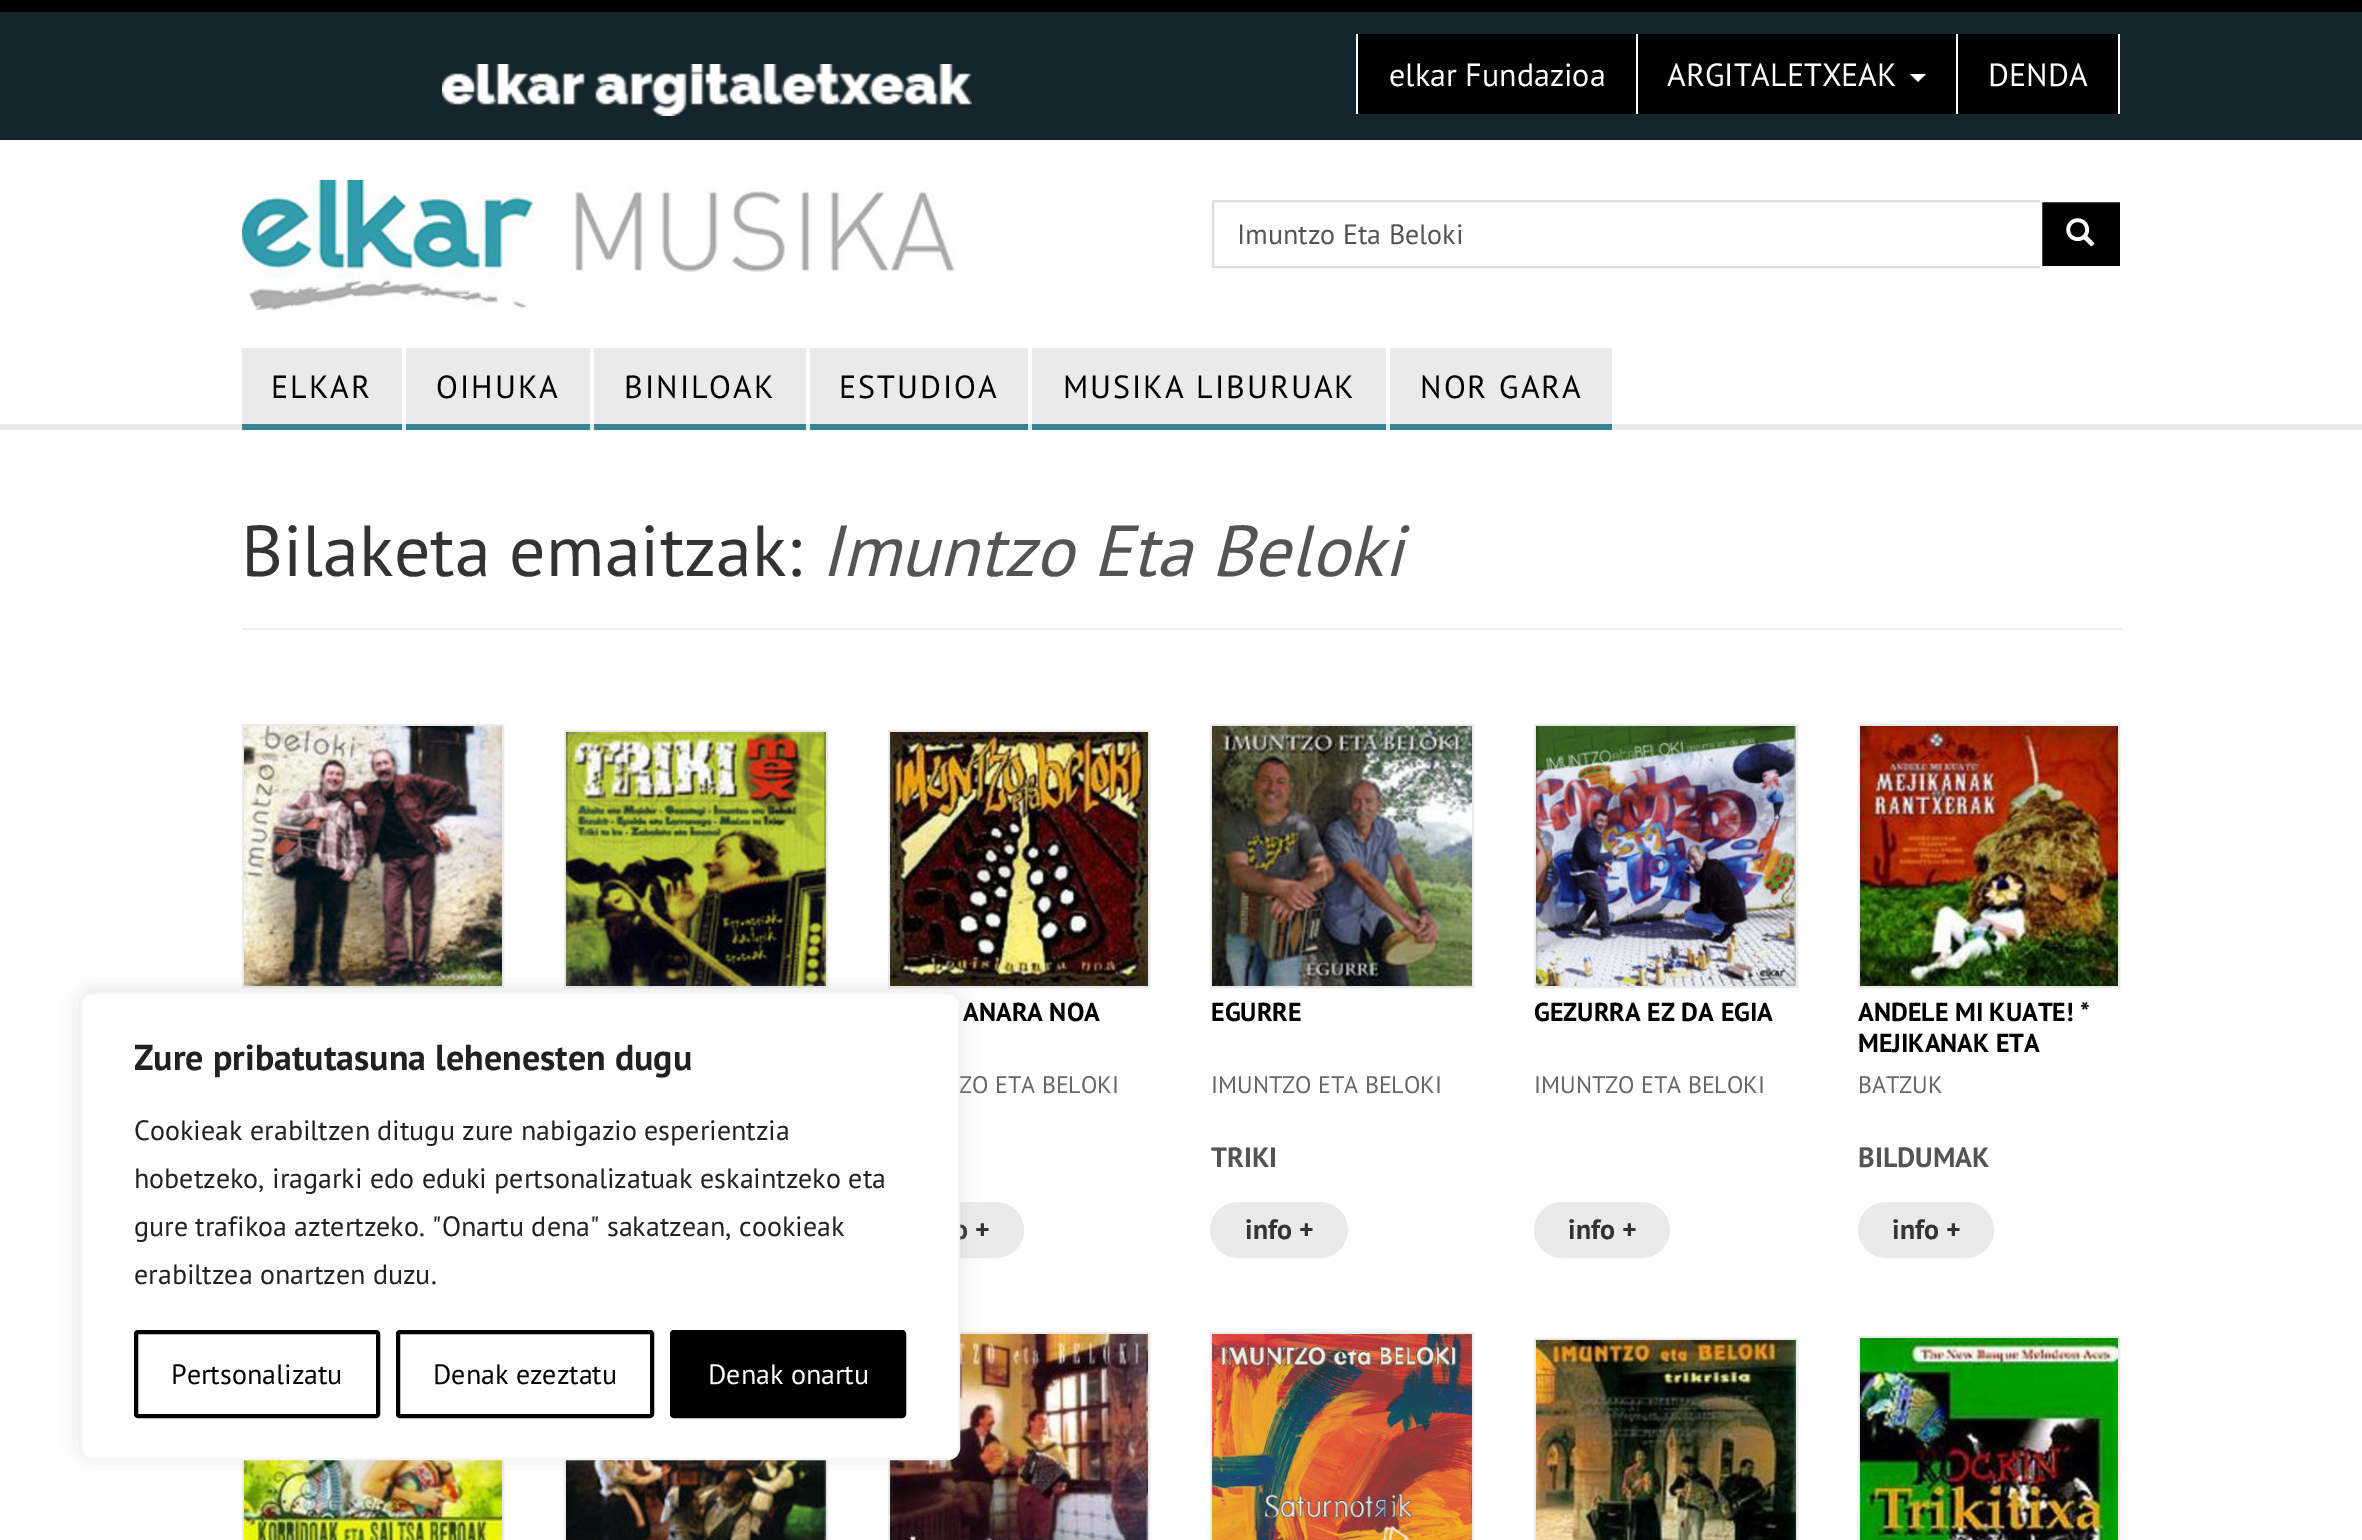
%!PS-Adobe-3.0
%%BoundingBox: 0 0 2362 1540
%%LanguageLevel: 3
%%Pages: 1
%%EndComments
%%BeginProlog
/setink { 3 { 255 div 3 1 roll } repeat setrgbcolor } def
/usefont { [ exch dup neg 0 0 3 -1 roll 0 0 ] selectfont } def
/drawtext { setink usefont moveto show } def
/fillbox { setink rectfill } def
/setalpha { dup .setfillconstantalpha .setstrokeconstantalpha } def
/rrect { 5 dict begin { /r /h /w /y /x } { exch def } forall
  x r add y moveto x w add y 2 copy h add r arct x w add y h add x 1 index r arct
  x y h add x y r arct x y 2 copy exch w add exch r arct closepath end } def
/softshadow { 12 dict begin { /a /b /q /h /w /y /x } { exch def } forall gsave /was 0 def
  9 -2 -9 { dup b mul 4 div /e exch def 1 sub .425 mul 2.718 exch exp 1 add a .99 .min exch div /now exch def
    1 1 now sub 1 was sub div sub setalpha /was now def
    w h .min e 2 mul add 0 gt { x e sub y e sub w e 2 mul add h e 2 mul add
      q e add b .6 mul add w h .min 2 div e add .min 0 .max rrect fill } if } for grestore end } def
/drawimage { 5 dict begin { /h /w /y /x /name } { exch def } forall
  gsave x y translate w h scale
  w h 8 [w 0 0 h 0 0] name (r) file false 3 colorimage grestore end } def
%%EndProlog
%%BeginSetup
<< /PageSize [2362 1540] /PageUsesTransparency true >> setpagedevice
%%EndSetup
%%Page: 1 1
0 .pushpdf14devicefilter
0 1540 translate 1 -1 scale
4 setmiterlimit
0 0 2362 1540 255 255 255 fillbox
0 12 2362 128 20 37 44 fillbox
0 0 2362 12 0 0 0 fillbox
(assets/img1.rgb) 442 64 530 52 drawimage
1636 34 2 80 255 255 255 fillbox
1356 34 2 80 255 255 255 fillbox
1358 34 278 80 0 0 0 fillbox
(elkar Fundazioa) 1389 86 /PTSans-Regular 32 255 255 255 drawtext
1956 34 2 80 255 255 255 fillbox
1638 34 318 80 0 0 0 fillbox
(ARGITALETXEAK) 1667 86 /PTSans-Regular 32 255 255 255 drawtext
1910 74 moveto 1926 74 lineto 1918 82 lineto closepath fill
2118 34 2 80 255 255 255 fillbox
1958 34 160 80 0 0 0 fillbox
(DENDA) 1988 86 /PTSans-Regular 32 255 255 255 drawtext
(assets/img2.rgb) 242 180 713 130 drawimage
221 221 221 setink
2 setlinewidth
1213 201 828 66 rectstroke
(Imuntzo Eta Beloki) 1237 244 /PTSans-Regular 28 84 84 84 drawtext
0 0 0 setink
2041 201 moveto 2121 201 lineto 2121 267 lineto 2041 267 lineto closepath gsave fill grestore
255 255 255 setink
stroke
(assets/img3.rgb) 2066 218 29 29 drawimage
0 424 2362 6 234 233 233 fillbox
242 424 160 6 54 131 147 fillbox
242 348 160 76 234 234 234 fillbox
/PTSans-Regular 32 usefont
0 0 0 setink
271 398 moveto 2 0 (ELKAR) ashow
406 424 184 6 54 131 147 fillbox
406 348 184 76 234 234 234 fillbox
0 0 0 setink
436 398 moveto 2 0 (OIHUKA) ashow
594 424 212 6 54 131 147 fillbox
594 348 212 76 234 234 234 fillbox
0 0 0 setink
624 398 moveto 2 0 (BINILOAK) ashow
810 424 218 6 54 131 147 fillbox
810 348 218 76 234 234 234 fillbox
0 0 0 setink
839 398 moveto 2 0 (ESTUDIOA) ashow
1032 424 354 6 54 131 147 fillbox
1032 348 354 76 234 234 234 fillbox
0 0 0 setink
1063 398 moveto 2 0 (MUSIKA LIBURUAK) ashow
1390 424 222 6 54 131 147 fillbox
1390 348 222 76 234 234 234 fillbox
0 0 0 setink
1420 398 moveto 2 0 (NOR GARA) ashow
242 628 1880 2 238 238 238 fillbox
(Bilaketa emaitzak:) 241 576 /PTSans-Regular 72 51 51 51 drawtext
(Imuntzo Eta Beloki) 821 576 /PTSans-Italic 72 84 84 84 drawtext
234 234 234 setink
243 725 260 262 rectstroke
(assets/img4.rgb) 244 726 258 260 drawimage
565 731 262 256 rectstroke
(assets/img5.rgb) 566 732 260 254 drawimage
889 731 260 256 rectstroke
(assets/img6.rgb) 890 732 258 254 drawimage
(ANARA NOA) 963 1021 /PTSans-Bold 26 0 0 0 drawtext
(ZO ETA BELOKI) 959 1093 /PTSans-Regular 24 102 102 102 drawtext
234 234 234 setink
889 1203 134 54 27 rrect gsave fill grestore
stroke
(o +) 953 1239 /PTSans-Bold 28 51 51 51 drawtext
234 234 234 setink
1211 725 262 262 rectstroke
(assets/img7.rgb) 1212 726 260 260 drawimage
(EGURRE) 1211 1021 /PTSans-Bold 26 0 0 0 drawtext
(IMUNTZO ETA BELOKI) 1211 1093 /PTSans-Regular 24 102 102 102 drawtext
(TRIKI) 1211 1167 /PTSans-Bold 28 84 84 84 drawtext
234 234 234 setink
1211 1203 136 54 27 rrect gsave fill grestore
stroke
(info +) 1245 1239 /PTSans-Bold 28 51 51 51 drawtext
234 234 234 setink
1535 725 262 262 rectstroke
(assets/img8.rgb) 1536 726 260 260 drawimage
(GEZURRA EZ DA EGIA) 1534 1021 /PTSans-Bold 26 0 0 0 drawtext
(IMUNTZO ETA BELOKI) 1534 1093 /PTSans-Regular 24 102 102 102 drawtext
234 234 234 setink
1535 1203 134 54 27 rrect gsave fill grestore
stroke
(info +) 1568 1239 /PTSans-Bold 28 51 51 51 drawtext
234 234 234 setink
1859 725 260 262 rectstroke
(assets/img9.rgb) 1860 726 258 260 drawimage
(ANDELE MI KUATE! *) 1858 1021 /PTSans-Bold 26 0 0 0 drawtext
(MEJIKANAK ETA) 1858 1052 /PTSans-Bold 26 0 0 0 drawtext
(BATZUK) 1858 1093 /PTSans-Regular 24 102 102 102 drawtext
(BILDUMAK) 1858 1167 /PTSans-Bold 28 84 84 84 drawtext
234 234 234 setink
1859 1203 134 54 27 rrect gsave fill grestore
stroke
(info +) 1892 1239 /PTSans-Bold 28 51 51 51 drawtext
234 234 234 setink
243 1333 260 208 rectstroke
(assets/img10.rgb) 244 1460 258 80 drawimage
565 1331 262 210 rectstroke
(assets/img11.rgb) 566 1460 260 80 drawimage
889 1333 260 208 rectstroke
(assets/img12.rgb) 890 1334 258 206 drawimage
1211 1333 262 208 rectstroke
(assets/img13.rgb) 1212 1334 260 206 drawimage
1535 1339 262 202 rectstroke
(assets/img14.rgb) 1536 1340 260 200 drawimage
1859 1337 260 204 rectstroke
(assets/img15.rgb) 1860 1338 258 202 drawimage
172 171 171 setink
80 990 880 468 12 10 0.3 softshadow
255 255 255 setink
81 993 878 466 11 rrect gsave fill grestore
244 244 244 setink
stroke
(Zure pribatutasuna lehenesten dugu) 134 1070 /PTSans-Bold 36 33 33 33 drawtext
(Cookieak erabiltzen ditugu zure nabigazio esperientzia) 134 1140 /PTSans-Regular 28 33 33 33 drawtext
(hobetzeko, iragarki edo eduki pertsonalizatuak eskaintzeko eta) 134 1188 /PTSans-Regular 28 33 33 33 drawtext
(gure trafikoa aztertzeko. "Onartu dena" sakatzean, cookieak) 134 1236 /PTSans-Regular 28 33 33 33 drawtext
(erabiltzea onartzen duzu.) 134 1284 /PTSans-Regular 28 33 33 33 drawtext
0 0 0 setink
4 setlinewidth
136 1332 242 84 2 rrect stroke
(Pertsonalizatu) 171 1384 /PTSans-Regular 28 0 0 0 drawtext
398 1332 254 84 2 rrect stroke
(Denak ezeztatu) 433 1384 /PTSans-Regular 28 0 0 0 drawtext
672 1332 232 84 2 rrect gsave fill grestore
stroke
(Denak onartu) 708 1384 /PTSans-Regular 28 255 255 255 drawtext
.poppdf14devicefilter showpage
%%EOF
